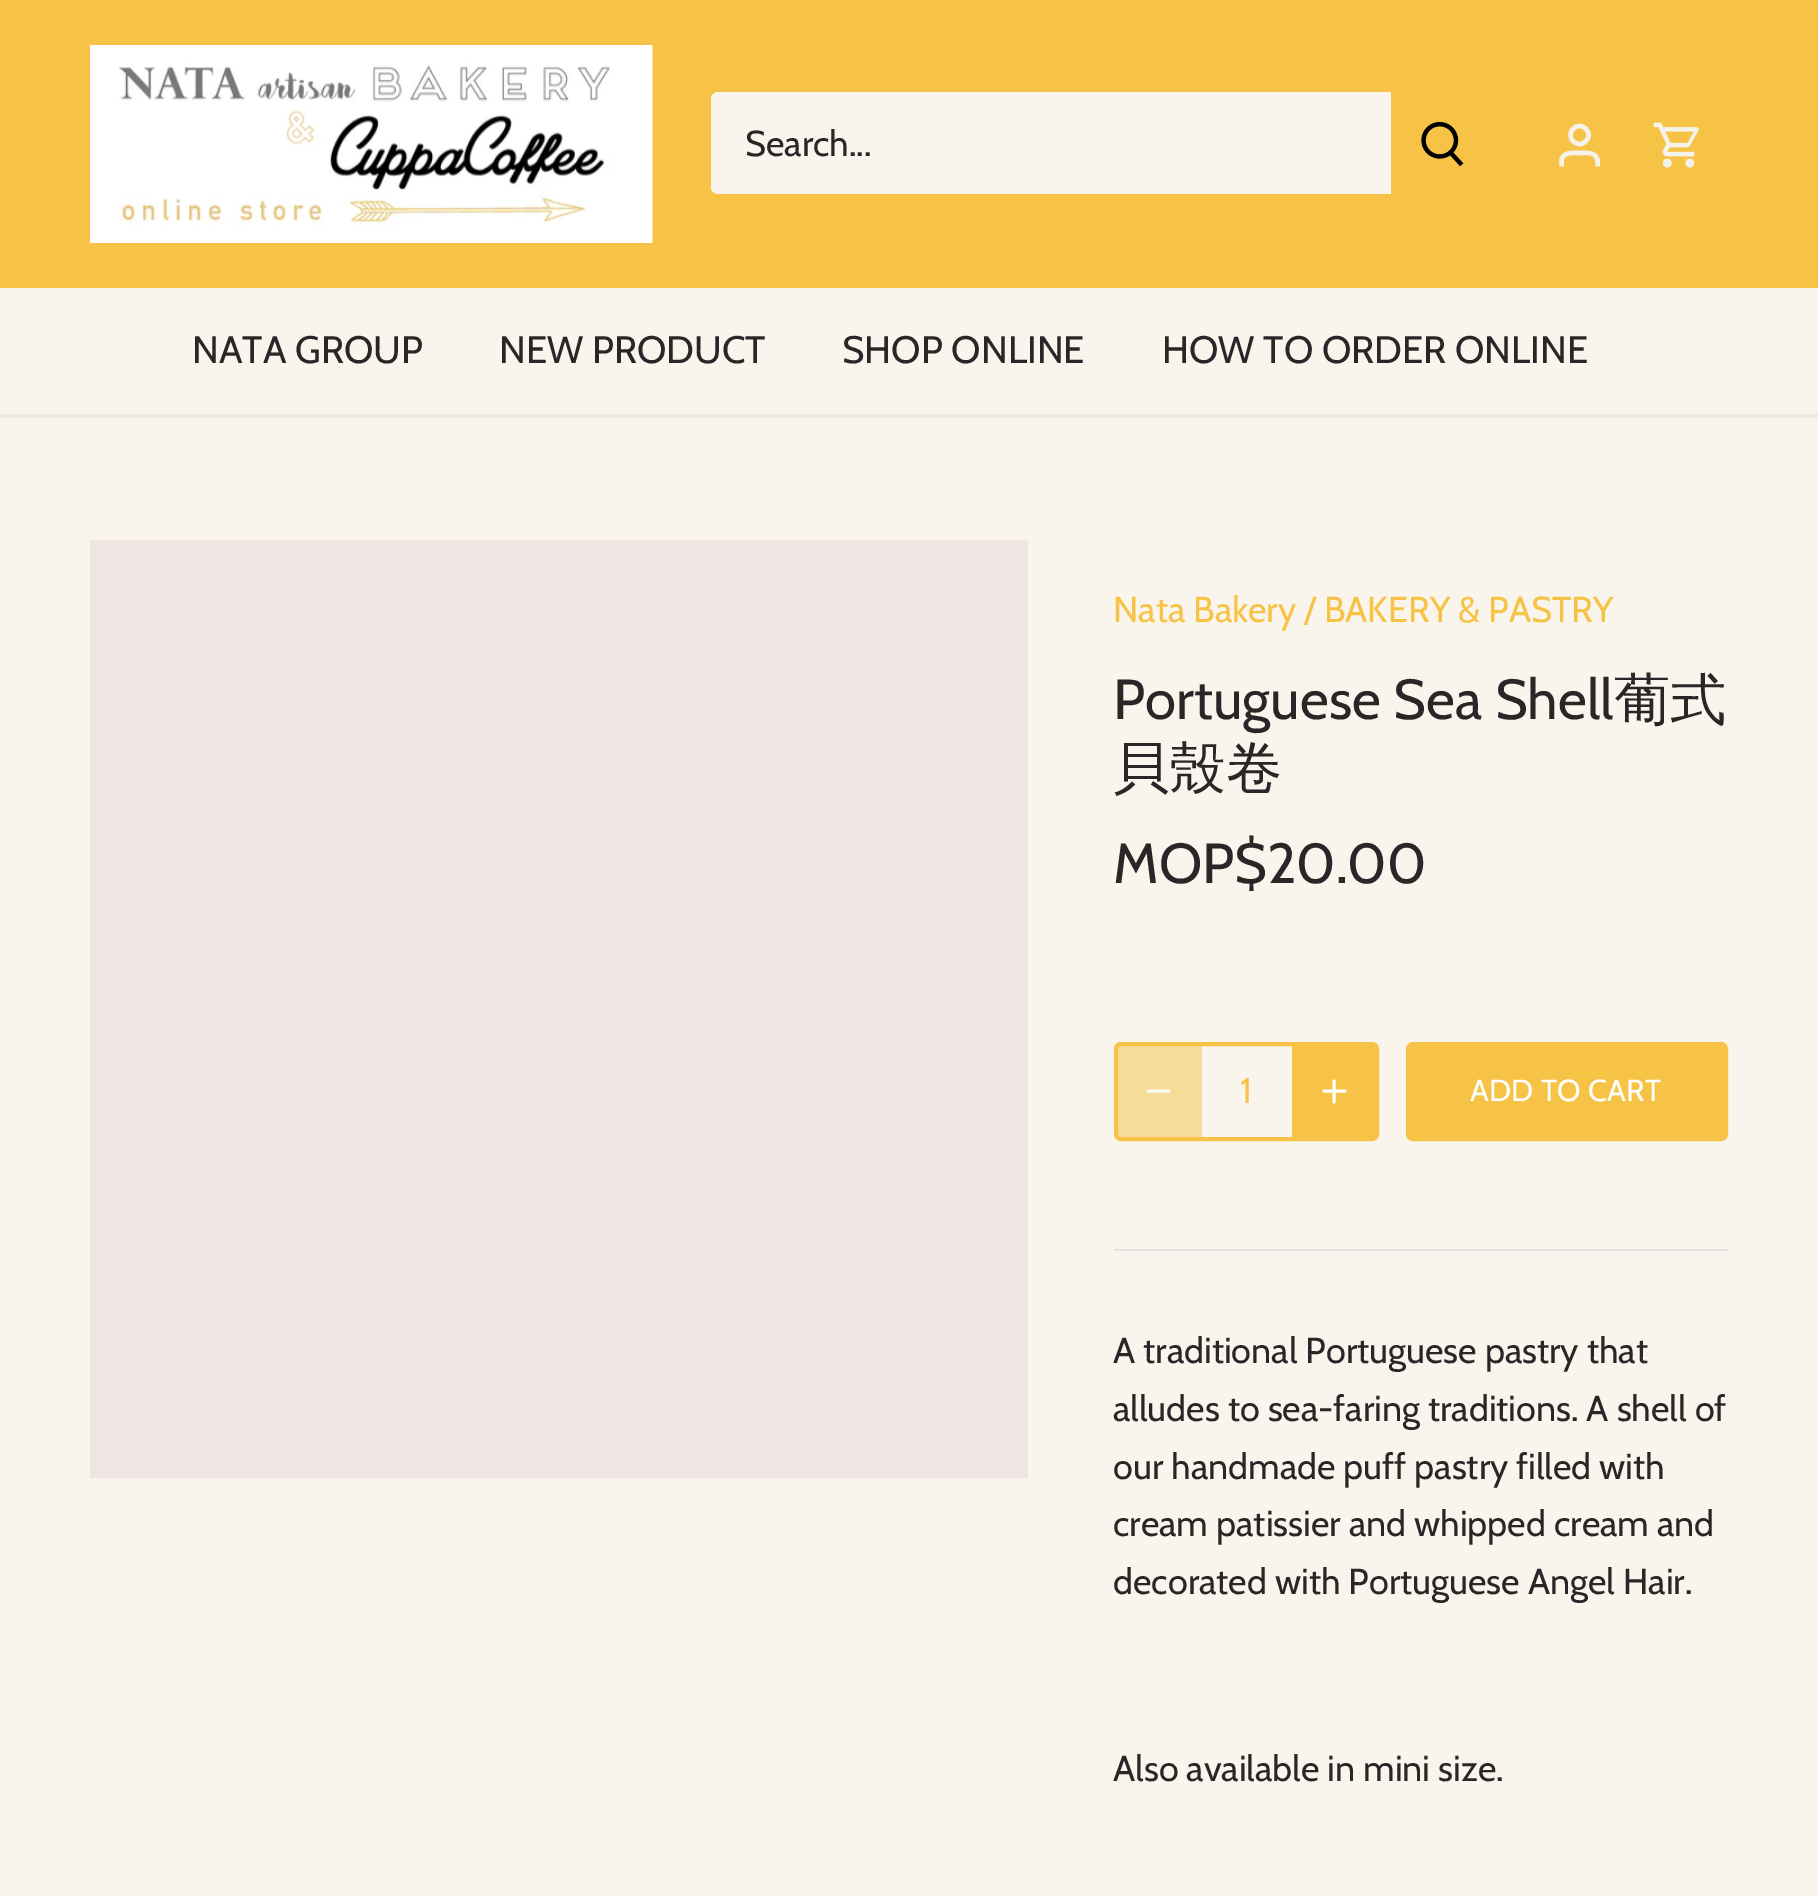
%!PS-Adobe-3.0
%%BoundingBox: 0 0 1818 1896
%%LanguageLevel: 3
%%Pages: 1
%%EndComments
%%BeginProlog
/setink { 3 { 255 div 3 1 roll } repeat setrgbcolor } def
/usefont { [ exch dup neg 0 0 3 -1 roll 0 0 ] selectfont } def
/drawtext { setink usefont moveto show } def
/fillbox { setink rectfill } def
/setalpha { dup .setfillconstantalpha .setstrokeconstantalpha } def
/disc { newpath 0 360 arc closepath } def
/rrect { 5 dict begin { /r /h /w /y /x } { exch def } forall
  x r add y moveto x w add y 2 copy h add r arct x w add y h add x 1 index r arct
  x y h add x y r arct x y 2 copy exch w add exch r arct closepath end } def
/softshadow { 12 dict begin { /a /b /q /h /w /y /x } { exch def } forall gsave /was 0 def
  9 -2 -9 { dup b mul 4 div /e exch def 1 sub .425 mul 2.718 exch exp 1 add a .99 .min exch div /now exch def
    1 1 now sub 1 was sub div sub setalpha /was now def
    w h .min e 2 mul add 0 gt { x e sub y e sub w e 2 mul add h e 2 mul add
      q e add b .6 mul add w h .min 2 div e add .min 0 .max rrect fill } if } for grestore end } def
/drawimage { 5 dict begin { /h /w /y /x /name } { exch def } forall
  gsave x y translate w h scale
  w h 8 [w 0 0 h 0 0] name (r) file false 3 colorimage grestore end } def
%%EndProlog
%%BeginSetup
<< /PageSize [1818 1896] /PageUsesTransparency true >> setpagedevice
%%EndSetup
%%Page: 1 1
0 .pushpdf14devicefilter
0 1896 translate 1 -1 scale
4 setmiterlimit
0 0 1818 1896 249 244 236 fillbox
gsave
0 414 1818 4 rectclip
0 0 0 setink
-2 -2 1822 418 0 3.5 0.08 softshadow
grestore
0 0 1818 288 246 195 71 fillbox
(assets/img1.rgb) 90 45 563 198 drawimage
249 244 236 setink
718 92 moveto 1393 92 lineto 1393 194 lineto 718 194 lineto 714 194 711 191 711 187 curveto 711 99 lineto 711 95 714 92 718 92 curveto closepath fill
(Search...) 745 156 /Cabin-Regular 36 44 37 40 drawtext
246 195 71 setink
1391 92 moveto 1489 92 lineto 1492 92 1494 94 1494 97 curveto 1494 189 lineto 1494 192 1492 194 1489 194 curveto 1391 194 lineto closepath fill
(assets/img2.rgb) 1421 122 43 45 drawimage
244 242 233 setink
4.5 setlinewidth
1579.5 135 9 disc stroke
1597.5 166.5 moveto 1597.5 160 lineto 1595.5 151.5 1586 153 1579.5 153 curveto 1573 153 1563.5 151.5 1561.5 160 curveto 1561.5 166.5 lineto stroke
(assets/img3.rgb) 1653 122 46 46 drawimage
(NATA GROUP) 192 363 /Cabin-Regular 38.25 44 37 40 drawtext
(NEW PRODUCT) 499 363 /Cabin-Regular 38.25 44 37 40 drawtext
(SHOP ONLINE) 842 363 /Cabin-Regular 38.25 44 37 40 drawtext
(HOW TO ORDER ONLINE) 1162 363 /Cabin-Regular 38.25 44 37 40 drawtext
90 540 938 938 239 229 227 fillbox
(Nata Bakery / BAKERY & PASTRY) 1113 622 /Cabin-Regular 36 246 195 71 drawtext
(Portuguese Sea Shell) 1113 719 /Cabin-Regular 56.25 44 37 40 drawtext
(葡式) 1614 719 /WenQuanYiZenHei-Medium 56.25 44 37 40 drawtext
(貝殼卷) 1113 787 /WenQuanYiZenHei-Medium 56.25 44 37 40 drawtext
(MOP$20.00) 1113 883 /Cabin-Regular 56.25 44 37 40 drawtext
246 195 71 setink
2 setlinewidth
1117 1045 259 93 4 rrect stroke
1115 1043 263 97 6 rrect stroke
0.5 setalpha
1123 1044 moveto 1202 1044 lineto 1202 1139 lineto 1123 1139 lineto 1119 1139 1116 1136 1116 1132 curveto 1116 1051 lineto 1116 1047 1119 1044 1123 1044 curveto closepath fill
1 setalpha
252 250 246 setink
3 setlinewidth
1 setlinecap
1 setlinejoin
1148 1091 moveto 1169 1091 lineto stroke
(1) 1240 1103 /Cabin-Regular 36 246 195 71 drawtext
1292 1044 moveto 1370 1044 lineto 1374 1044 1377 1047 1377 1051 curveto 1377 1132 lineto 1377 1136 1374 1139 1370 1139 curveto 1292 1139 lineto closepath fill
255 255 255 setink
1334 1081 moveto 1334 1102 lineto 1324 1091 moveto 1345 1091 lineto stroke
246 195 71 setink
1408.5 1044.5 317 94 4.5 rrect gsave fill grestore
5 setlinewidth
0 setlinecap
0 setlinejoin
stroke
/Cabin-Regular 30.5 usefont
255 255 255 setink
1470 1101 moveto 0.25 0 (ADD TO CART) ashow
1114 1249 614 2 226 226 226 fillbox
(A traditional Portuguese pastry that) 1113 1363 /Cabin-Regular 36 44 37 40 drawtext
(alludes to sea-faring traditions. A shell of) 1113 1421 /Cabin-Regular 36 44 37 40 drawtext
(our handmade puff pastry filled with) 1113 1479 /Cabin-Regular 36 44 37 40 drawtext
(cream patissier and whipped cream and) 1113 1536 /Cabin-Regular 36 44 37 40 drawtext
(decorated with Portuguese Angel Hair.) 1113 1594 /Cabin-Regular 36 44 37 40 drawtext
(Also available in mini size.) 1113 1781 /Cabin-Regular 36 44 37 40 drawtext
.poppdf14devicefilter showpage
%%EOF
